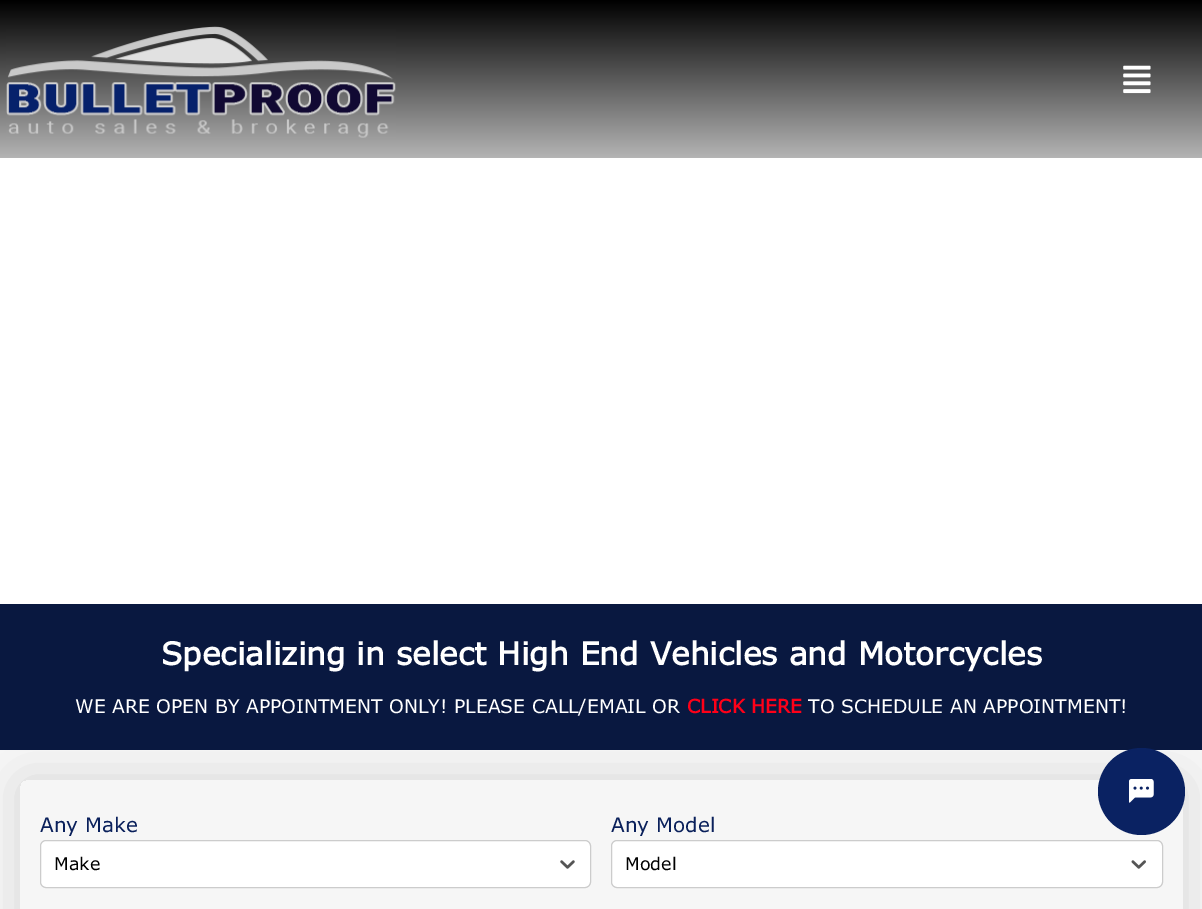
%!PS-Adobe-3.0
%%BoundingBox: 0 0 1202 909
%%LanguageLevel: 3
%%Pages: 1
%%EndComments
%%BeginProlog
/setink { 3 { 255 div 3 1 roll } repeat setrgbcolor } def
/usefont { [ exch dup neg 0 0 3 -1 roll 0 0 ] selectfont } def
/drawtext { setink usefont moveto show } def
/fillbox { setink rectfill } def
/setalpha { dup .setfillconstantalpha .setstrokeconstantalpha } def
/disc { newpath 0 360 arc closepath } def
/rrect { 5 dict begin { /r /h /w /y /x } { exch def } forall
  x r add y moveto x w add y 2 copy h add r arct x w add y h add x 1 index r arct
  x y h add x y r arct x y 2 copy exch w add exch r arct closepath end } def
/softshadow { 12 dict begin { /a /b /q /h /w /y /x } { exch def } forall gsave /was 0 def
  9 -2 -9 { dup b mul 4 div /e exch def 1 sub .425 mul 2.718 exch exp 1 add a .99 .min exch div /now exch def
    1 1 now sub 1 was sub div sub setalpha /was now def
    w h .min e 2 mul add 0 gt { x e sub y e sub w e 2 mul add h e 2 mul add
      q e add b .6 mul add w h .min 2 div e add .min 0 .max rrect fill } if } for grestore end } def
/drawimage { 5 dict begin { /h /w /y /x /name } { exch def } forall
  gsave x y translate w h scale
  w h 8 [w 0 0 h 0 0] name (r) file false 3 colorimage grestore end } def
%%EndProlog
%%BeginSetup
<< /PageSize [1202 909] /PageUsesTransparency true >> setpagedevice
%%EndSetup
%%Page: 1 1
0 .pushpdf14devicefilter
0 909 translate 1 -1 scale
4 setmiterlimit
0 0 1202 909 246 246 246 fillbox
gsave 0 0 moveto 1202 0 lineto 1202 158 lineto 0 158 lineto closepath clip newpath
<< /ShadingType 2 /ColorSpace /DeviceRGB /Coords [601 0 601 202] /Extend [true true] /Function << /FunctionType 2 /Domain [0 1] /C0 [0 0 0] /C1 [0.902 0.902 0.902] /N 1 >> >> shfill grestore
(assets/img1.rgb) 6 26 390 112 drawimage
(assets/img2.rgb) 1123 65 28 29 drawimage
0 604 1202 146 9 24 64 fillbox
0 158 1202 446 255 255 255 fillbox
(Specializing in select High End Vehicles and Motorcycles) 161 665 /Verdana-Bold 31.25 255 255 255 drawtext
(WE ARE OPEN BY APPOINTMENT ONLY! PLEASE CALL/EMAIL OR) 75 713 /Verdana-Regular 18.75 255 255 255 drawtext
(CLICK HERE) 687 713 /Verdana-Bold 18.75 255 0 24 drawtext
(TO SCHEDULE AN APPOINTMENT!) 808 713 /Verdana-Regular 18.75 255 255 255 drawtext
gsave
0 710 moveto 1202 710 lineto 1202 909 lineto 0 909 lineto closepath 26 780 moveto 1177 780 lineto 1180.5 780 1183 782.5 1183 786 curveto 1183 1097 lineto 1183 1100.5 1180.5 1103 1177 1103 curveto 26 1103 lineto 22.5 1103 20 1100.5 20 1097 curveto 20 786 lineto 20 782.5 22.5 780 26 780 curveto closepath eoclip newpath
0 0 0 setink
20 780 1163 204 6 23 0.14 softshadow
grestore
(Any Make) 40 832 /Verdana-Regular 20 10 32 91 drawtext
255 255 255 setink
40.5 840.5 550 47 5.5 rrect gsave fill grestore
204 204 204 setink
stroke
(Make) 54 870 /Verdana-Regular 17.5 0 0 0 drawtext
(assets/img3.rgb) 560 860 15 9 drawimage
(Any Model) 611 832 /Verdana-Regular 20 10 32 91 drawtext
255 255 255 setink
611.5 840.5 551 47 5.5 rrect gsave fill grestore
204 204 204 setink
stroke
(Model) 625 870 /Verdana-Regular 17.5 0 0 0 drawtext
(assets/img4.rgb) 1131 860 15 9 drawimage
10 34 98 setink
1141.5 791.5 43.5 disc fill
(assets/img5.rgb) 1129 779 25 24 drawimage
.poppdf14devicefilter showpage
%%EOF
